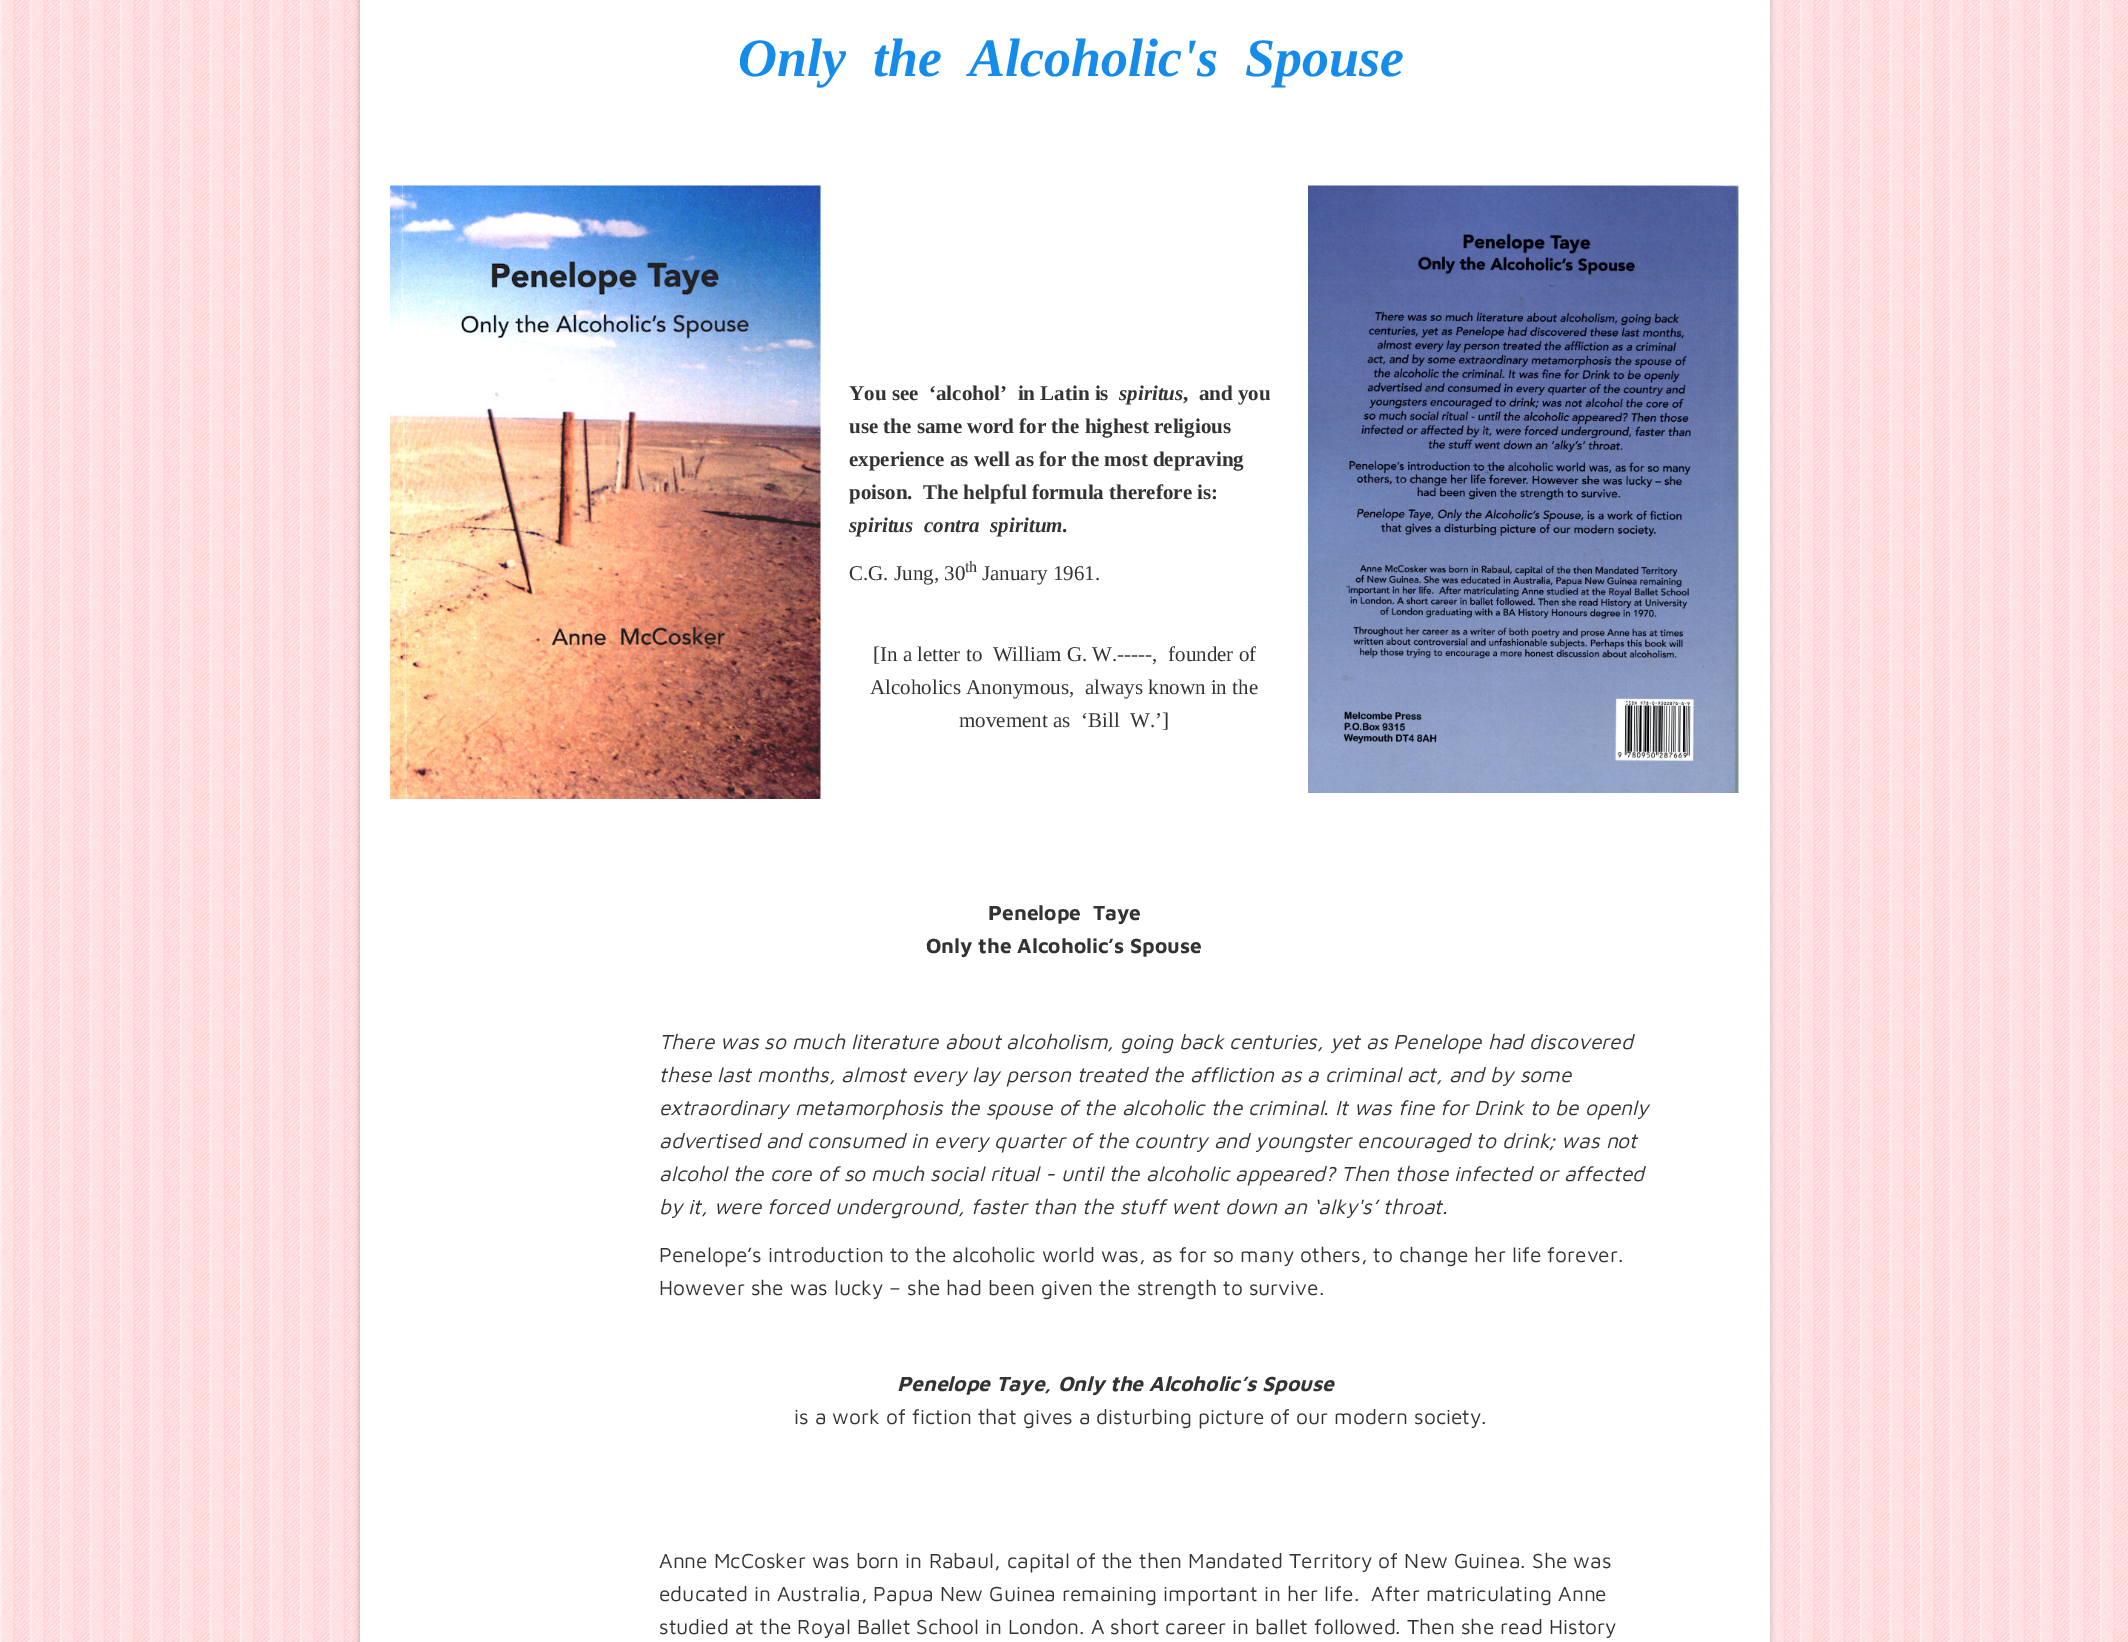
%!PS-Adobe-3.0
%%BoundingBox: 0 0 2128 1642
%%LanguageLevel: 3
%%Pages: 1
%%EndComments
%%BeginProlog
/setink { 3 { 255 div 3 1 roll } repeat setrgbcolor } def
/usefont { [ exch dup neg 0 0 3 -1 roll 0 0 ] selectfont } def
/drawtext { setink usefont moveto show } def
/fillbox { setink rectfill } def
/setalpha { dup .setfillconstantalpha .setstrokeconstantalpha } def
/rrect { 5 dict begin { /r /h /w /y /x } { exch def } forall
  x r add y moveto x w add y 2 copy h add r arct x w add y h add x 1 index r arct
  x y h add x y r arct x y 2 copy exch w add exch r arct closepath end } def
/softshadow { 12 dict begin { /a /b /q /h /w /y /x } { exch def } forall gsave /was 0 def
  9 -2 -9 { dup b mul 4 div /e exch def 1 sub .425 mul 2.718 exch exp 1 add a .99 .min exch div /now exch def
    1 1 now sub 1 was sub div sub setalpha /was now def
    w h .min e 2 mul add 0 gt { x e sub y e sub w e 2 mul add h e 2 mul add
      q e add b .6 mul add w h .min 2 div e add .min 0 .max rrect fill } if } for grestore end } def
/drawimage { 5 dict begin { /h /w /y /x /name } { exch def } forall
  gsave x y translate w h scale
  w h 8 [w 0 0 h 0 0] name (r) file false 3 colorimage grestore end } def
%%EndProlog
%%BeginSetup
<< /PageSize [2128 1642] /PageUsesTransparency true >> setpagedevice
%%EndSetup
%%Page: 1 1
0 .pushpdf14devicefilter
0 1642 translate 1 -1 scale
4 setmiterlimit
0 0 2128 1642 255 255 255 fillbox
(assets/img1.rgb) 0 0 2128 1642 drawimage
0 0 0 setink
360 -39 1410 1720 30 3 0.29 softshadow
360 0 1410 1642 255 255 255 fillbox
(Only  the  Alcoholic's  Spouse) 738 76 /LiberationSerif-BoldItalic 54 21 140 233 drawtext
(assets/img2.rgb) 390 185 431 614 drawimage
(You see  ‘alcohol’  in Latin is) 849 400 /LiberationSerif-Bold 21 51 51 51 drawtext
(spiritus) 1119 400 /LiberationSerif-BoldItalic 21 51 51 51 drawtext
(,  and you) 1183 400 /LiberationSerif-Bold 21 51 51 51 drawtext
(use the same word for the highest religious) 849 433 /LiberationSerif-Bold 21 51 51 51 drawtext
(experience as well as for the most depraving) 849 466 /LiberationSerif-Bold 21 51 51 51 drawtext
(poison.  The helpful formula therefore is:) 849 499 /LiberationSerif-Bold 21 51 51 51 drawtext
(spiritus  contra  spiritum) 849 532 /LiberationSerif-BoldItalic 21 51 51 51 drawtext
(.) 1062 532 /LiberationSerif-Bold 21 51 51 51 drawtext
(C.G. Jung, 30) 849 580 /LiberationSerif-Regular 21 51 51 51 drawtext
(th) 965 572 /LiberationSerif-Regular 16 51 51 51 drawtext
(January 1961.) 982 580 /LiberationSerif-Regular 21 51 51 51 drawtext
([In a letter to  William G. W.-----,  founder of) 873 661 /LiberationSerif-Regular 21 51 51 51 drawtext
(Alcoholics Anonymous,  always known in the) 870 694 /LiberationSerif-Regular 21 51 51 51 drawtext
(movement as  ‘Bill  W.’]) 959 727 /LiberationSerif-Regular 21 51 51 51 drawtext
(assets/img3.rgb) 1308 185 431 608 drawimage
(Penelope  Taye) 988 920 /MavenPro-Bold 21 51 51 51 drawtext
(Only the Alcoholic’s Spouse) 926 953 /MavenPro-Bold 21 51 51 51 drawtext
(There was so much literature about alcoholism, going back centuries, yet as Penelope had discovered) 659 1049 /MavenPro-Italic 21 51 51 51 drawtext
(these last months, almost every lay person treated the affliction as a criminal act, and by some) 659 1082 /MavenPro-Italic 21 51 51 51 drawtext
(extraordinary metamorphosis the spouse of the alcoholic the criminal. It was fine for Drink to be openly) 659 1115 /MavenPro-Italic 21 51 51 51 drawtext
(advertised and consumed in every quarter of the country and youngster encouraged to drink; was not) 659 1148 /MavenPro-Italic 21 51 51 51 drawtext
(alcohol the core of so much social ritual - until the alcoholic appeared? Then those infected or affected) 659 1181 /MavenPro-Italic 21 51 51 51 drawtext
(by it, were forced underground, faster than the stuff went down an ‘alky's’ throat.) 659 1214 /MavenPro-Italic 21 51 51 51 drawtext
(Penelope’s introduction to the alcoholic world was, as for so many others, to change her life forever.) 659 1262 /MavenPro-Regular 21 51 51 51 drawtext
(However she was lucky – she had been given the strength to survive.) 659 1295 /MavenPro-Regular 21 51 51 51 drawtext
(Penelope Taye, Only the Alcoholic’s Spouse) 897 1391 /MavenPro-BoldItalic 21 51 51 51 drawtext
(is a work of fiction that gives a disturbing picture of our modern society.) 794 1424 /MavenPro-Regular 21 51 51 51 drawtext
(Anne McCosker was born in Rabaul, capital of the then Mandated Territory of New Guinea. She was) 659 1568 /MavenPro-Regular 21 51 51 51 drawtext
(educated in Australia, Papua New Guinea remaining important in her life.  After matriculating Anne) 659 1601 /MavenPro-Regular 21 51 51 51 drawtext
(studied at the Royal Ballet School in London. A short career in ballet followed. Then she read History) 659 1634 /MavenPro-Regular 21 51 51 51 drawtext
.poppdf14devicefilter showpage
%%EOF
